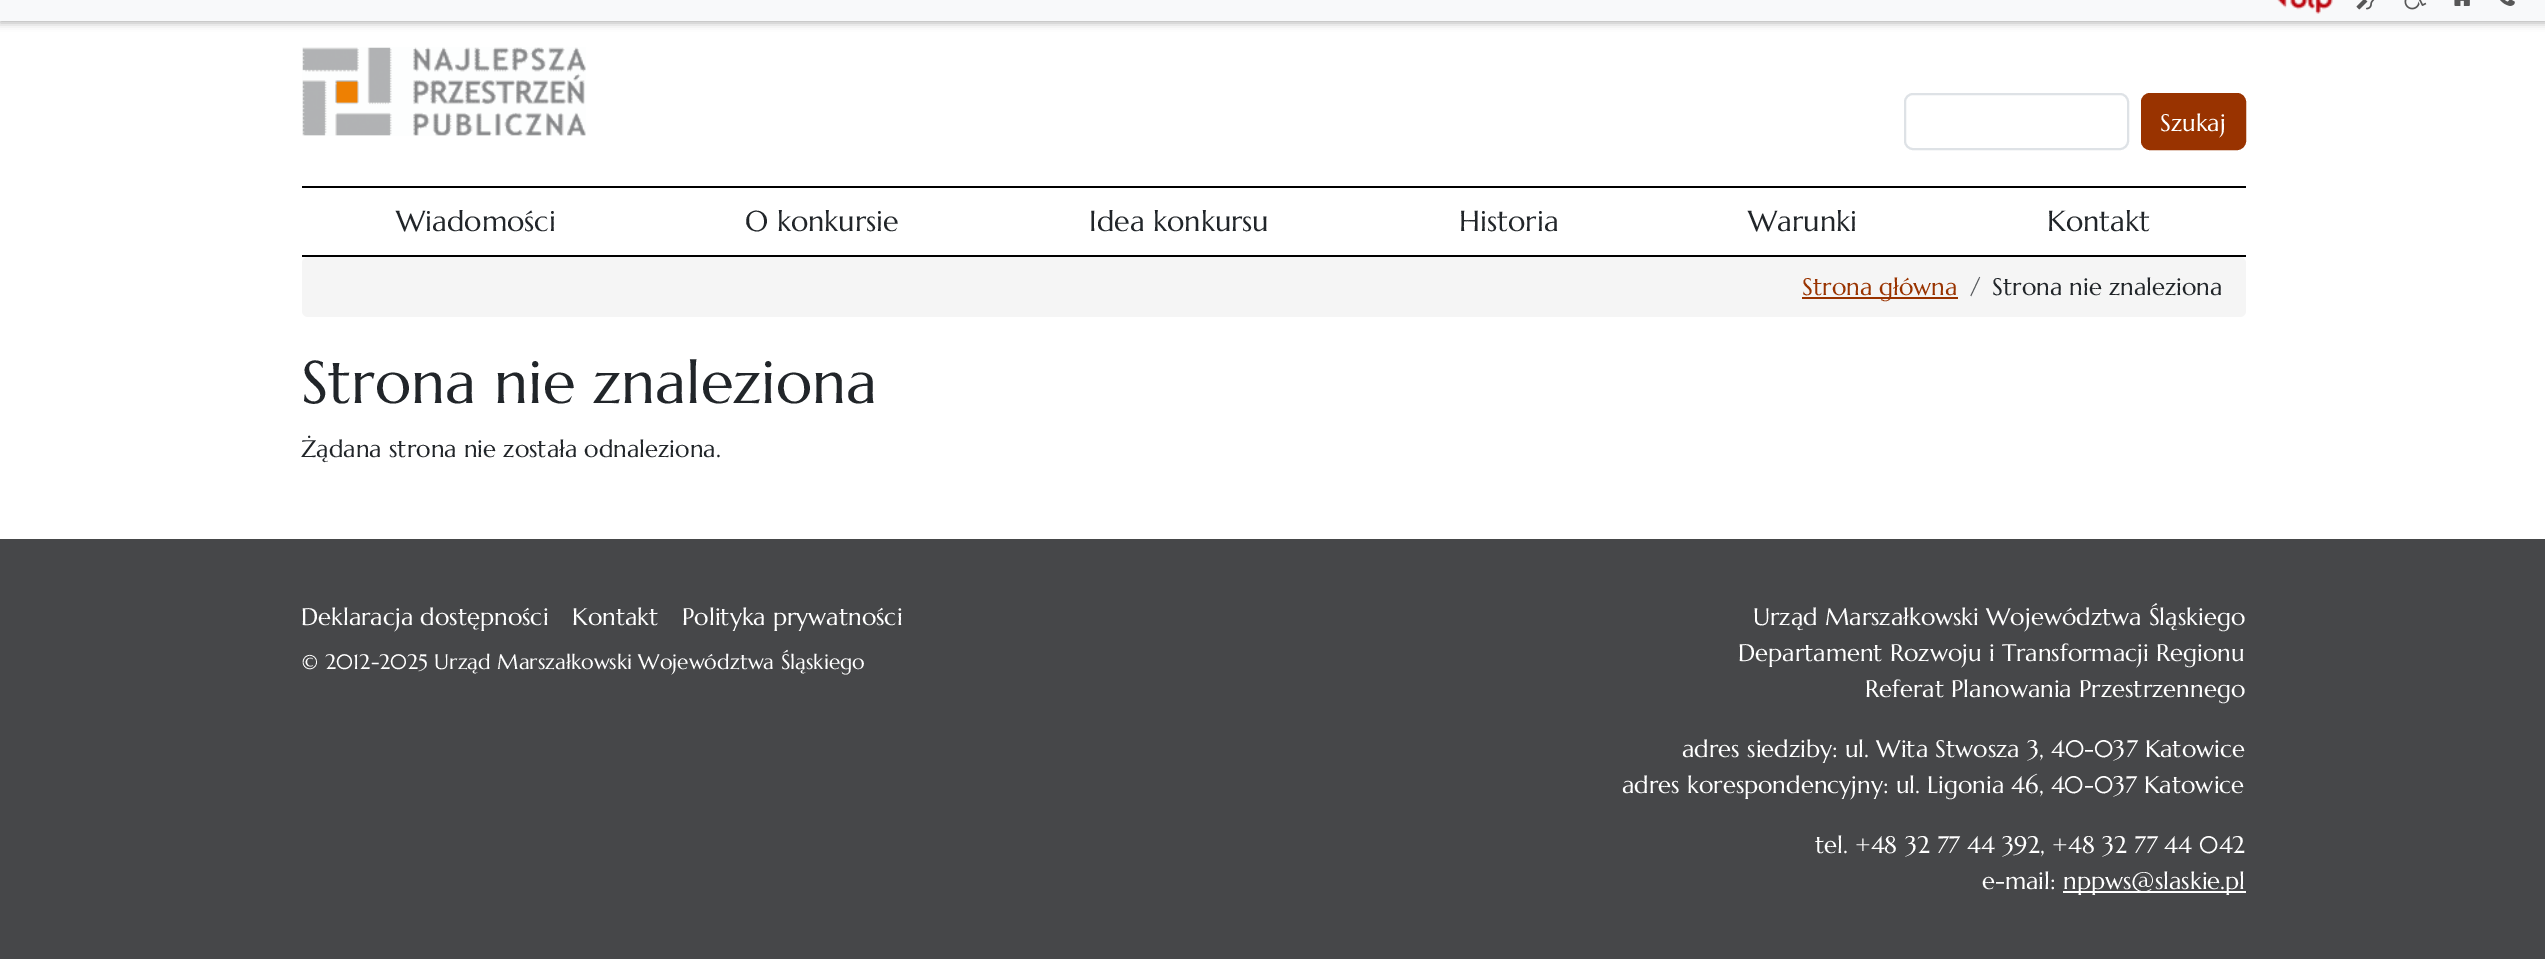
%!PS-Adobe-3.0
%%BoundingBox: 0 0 2545 959
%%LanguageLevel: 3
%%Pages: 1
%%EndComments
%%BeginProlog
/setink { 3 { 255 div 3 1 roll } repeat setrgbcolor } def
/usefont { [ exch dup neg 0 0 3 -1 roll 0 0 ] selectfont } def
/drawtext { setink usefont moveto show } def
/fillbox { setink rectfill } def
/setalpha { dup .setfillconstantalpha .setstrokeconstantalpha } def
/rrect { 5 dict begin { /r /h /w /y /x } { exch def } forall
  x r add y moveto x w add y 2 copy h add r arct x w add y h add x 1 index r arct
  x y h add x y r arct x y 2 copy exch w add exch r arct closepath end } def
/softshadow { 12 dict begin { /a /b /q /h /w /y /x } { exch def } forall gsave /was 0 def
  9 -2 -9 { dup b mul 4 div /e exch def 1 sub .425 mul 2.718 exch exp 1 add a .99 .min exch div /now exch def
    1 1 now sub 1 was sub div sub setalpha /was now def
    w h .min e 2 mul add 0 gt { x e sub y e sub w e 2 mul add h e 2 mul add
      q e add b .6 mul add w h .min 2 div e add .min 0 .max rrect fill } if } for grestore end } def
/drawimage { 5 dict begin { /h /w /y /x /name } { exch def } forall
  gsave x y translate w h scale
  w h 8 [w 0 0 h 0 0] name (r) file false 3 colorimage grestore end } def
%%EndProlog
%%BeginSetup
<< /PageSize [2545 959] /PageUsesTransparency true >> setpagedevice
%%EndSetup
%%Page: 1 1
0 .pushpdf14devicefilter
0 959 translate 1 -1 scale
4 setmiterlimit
0 0 2545 959 255 255 255 fillbox
0 0 0 setink
0 -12 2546 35 0 4 0.3 softshadow
0 0 2545 21 248 249 250 fillbox
(assets/img1.rgb) 2277 0 56 14 drawimage
(assets/img2.rgb) 2356 0 19 10 drawimage
(assets/img3.rgb) 2404 0 23 10 drawimage
(assets/img4.rgb) 2454 0 16 6 drawimage
(assets/img5.rgb) 2500 0 15 6 drawimage
(assets/img6.rgb) 302 47 284 89 drawimage
222 226 230 setink
2 setlinewidth
1905 94 223 55 8 rrect stroke
153 51 0 setink
2142 94 103 55 8 rrect gsave fill grestore
stroke
(Szukaj) 2160 131 /Marcellus-Regular 24 255 255 255 drawtext
302 186 1944 2 0 0 0 fillbox
302 255 1944 2 0 0 0 fillbox
(Wiadomości) 396 231 /Marcellus-Regular 28.75 33 37 41 drawtext
(O konkursie) 745 231 /Marcellus-Regular 28.75 33 37 41 drawtext
(Idea konkursu) 1089 231 /Marcellus-Regular 28.75 33 37 41 drawtext
(Historia) 1459 231 /Marcellus-Regular 28.75 33 37 41 drawtext
(Warunki) 1748 231 /Marcellus-Regular 28.75 33 37 41 drawtext
(Kontakt) 2047 231 /Marcellus-Regular 28.75 33 37 41 drawtext
245 245 245 setink
302 257 1944 60 6 rrect fill
1802 297 156 2 153 51 0 fillbox
(Strona główna) 1802 295 /Marcellus-Regular 24 153 51 0 drawtext
(/) 1970 295 /Marcellus-Regular 24 86 89 92 drawtext
(Strona nie znaleziona) 1992 295 /Marcellus-Regular 24 33 37 41 drawtext
(Strona nie znaleziona) 301 403 /Marcellus-Regular 60 33 37 41 drawtext
(Żądana strona nie została odnaleziona.) 301 457 /Marcellus-Regular 24 33 37 41 drawtext
0 539 2545 420 70 71 73 fillbox
(Deklaracja dostępności) 301 625 /Marcellus-Regular 24 255 255 255 drawtext
(Kontakt) 572 625 /Marcellus-Regular 24 255 255 255 drawtext
(Polityka prywatności) 682 625 /Marcellus-Regular 24 255 255 255 drawtext
(© 2012-2025 Urząd Marszałkowski Województwa Śląskiego) 301 669 /Marcellus-Regular 21 255 255 255 drawtext
(Urząd Marszałkowski Województwa Śląskiego) 1753 625 /Marcellus-Regular 24 255 255 255 drawtext
(Departament Rozwoju i Transformacji Regionu) 1738 661 /Marcellus-Regular 24 255 255 255 drawtext
(Referat Planowania Przestrzennego) 1865 697 /Marcellus-Regular 24 255 255 255 drawtext
(adres siedziby: ul. Wita Stwosza 3, 40-037 Katowice) 1682 757 /Marcellus-Regular 24 255 255 255 drawtext
(adres korespondencyjny: ul. Ligonia 46, 40-037 Katowice) 1622 793 /Marcellus-Regular 24 255 255 255 drawtext
(tel. +48 32 77 44 392, +48 32 77 44 042) 1815 853 /Marcellus-Regular 24 255 255 255 drawtext
(e-mail:) 1982 889 /Marcellus-Regular 24 255 255 255 drawtext
2063 891 183 2 255 255 255 fillbox
(nppws@slaskie.pl) 2063 889 /Marcellus-Regular 24 255 255 255 drawtext
.poppdf14devicefilter showpage
%%EOF
